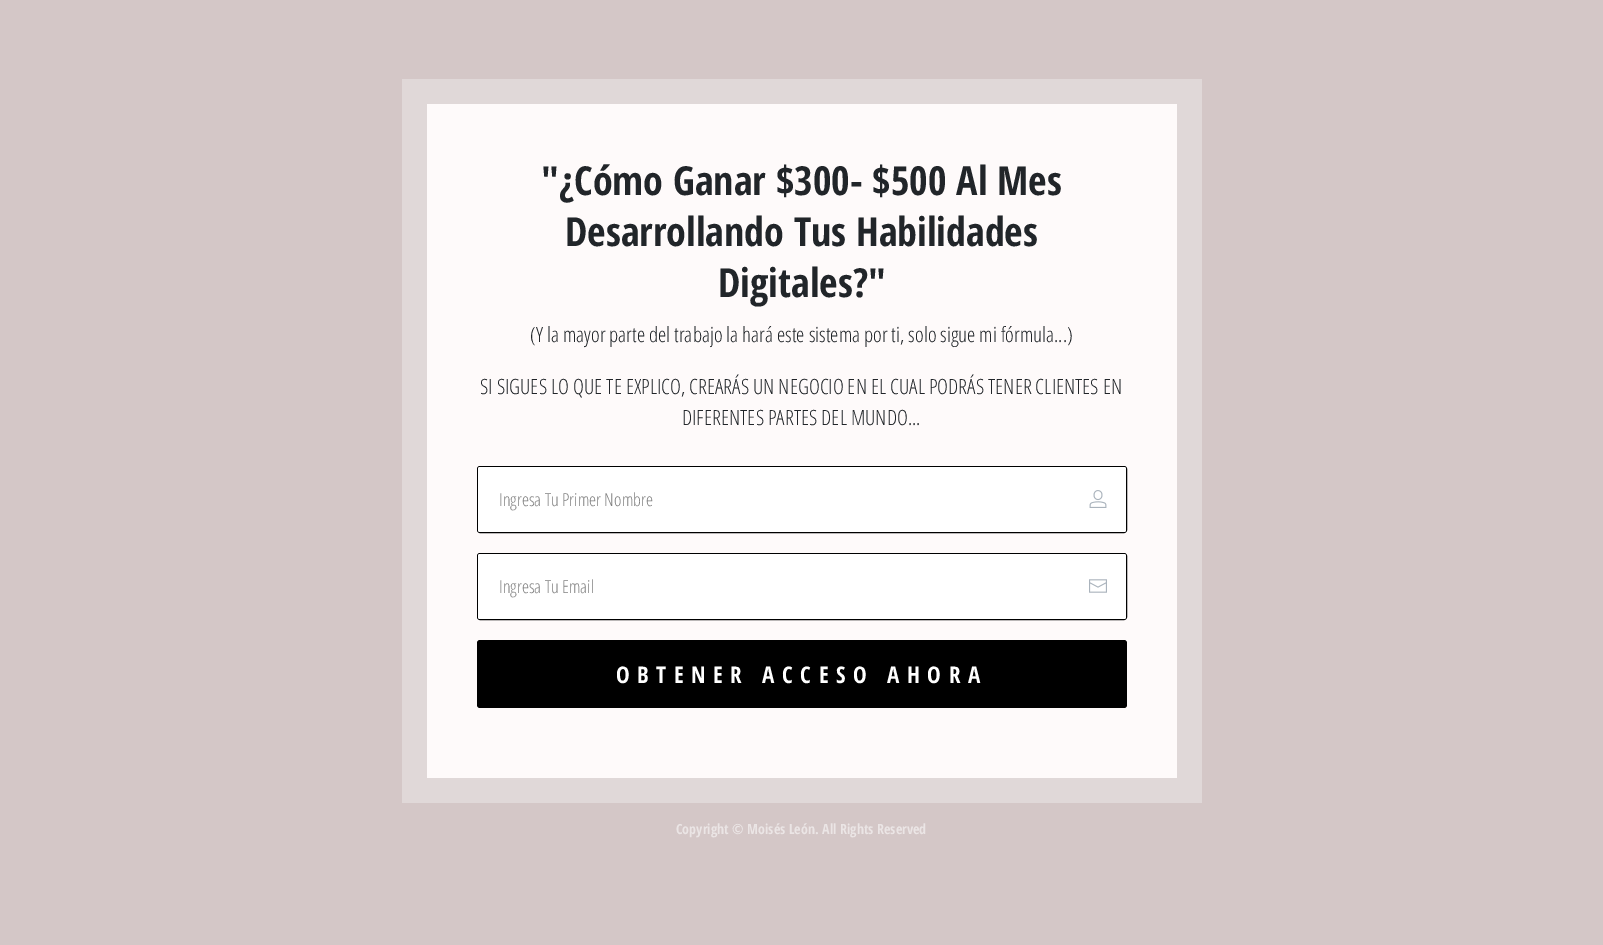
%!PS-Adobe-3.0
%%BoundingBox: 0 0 1603 945
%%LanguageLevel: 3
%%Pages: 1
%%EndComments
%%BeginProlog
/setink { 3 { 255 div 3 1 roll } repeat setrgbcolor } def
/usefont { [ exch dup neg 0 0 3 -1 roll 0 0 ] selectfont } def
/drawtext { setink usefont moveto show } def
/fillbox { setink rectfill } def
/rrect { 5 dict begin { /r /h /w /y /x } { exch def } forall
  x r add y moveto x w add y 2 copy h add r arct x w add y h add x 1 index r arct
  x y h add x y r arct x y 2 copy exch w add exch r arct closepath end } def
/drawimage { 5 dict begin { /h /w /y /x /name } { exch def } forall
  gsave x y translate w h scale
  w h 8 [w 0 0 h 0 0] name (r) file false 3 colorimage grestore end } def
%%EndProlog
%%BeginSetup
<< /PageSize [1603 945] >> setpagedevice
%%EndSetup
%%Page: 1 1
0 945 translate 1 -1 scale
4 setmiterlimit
0 0 1603 945 212 199 199 fillbox
402 79 800 724 224 216 216 fillbox
427 104 750 674 254 250 250 fillbox
("¿Cómo Ganar $300- $500 Al Mes) 541 195 /OpenSansCondensed-Bold 40 33 37 41 drawtext
(Desarrollando Tus Habilidades) 565 246 /OpenSansCondensed-Bold 40 33 37 41 drawtext
(Digitales?") 718 297 /OpenSansCondensed-Bold 40 33 37 41 drawtext
(\(Y la mayor parte del trabajo la hará este sistema por ti, solo sigue mi fórmula...\)) 530 342 /OpenSansCondensed-Light 21 33 37 41 drawtext
(SI SIGUES LO QUE TE EXPLICO, CREARÁS UN NEGOCIO EN EL CUAL PODRÁS TENER CLIENTES EN) 480 394 /OpenSansCondensed-Light 21 33 37 41 drawtext
(DIFERENTES PARTES DEL MUNDO...) 682 425 /OpenSansCondensed-Light 21 33 37 41 drawtext
0 0 0 setink
477.5 466.5 649 66 2.5 rrect stroke
255 255 255 setink
478 467 648 65 2 rrect fill
(Ingresa Tu Primer Nombre) 499 506 /OpenSansCondensed-Light 18 128 128 128 drawtext
(assets/img1.rgb) 1089 490 18 18 drawimage
0 0 0 setink
477.5 553.5 649 66 2.5 rrect stroke
255 255 255 setink
478 554 648 65 2 rrect fill
(Ingresa Tu Email) 499 593 /OpenSansCondensed-Light 18 128 128 128 drawtext
(assets/img2.rgb) 1089 579 18 14 drawimage
0 0 0 setink
477 640 650 68 3 rrect fill
/OpenSansCondensed-Bold 23 usefont
255 255 255 setink
616 683 moveto 7.5 0 (OBTENER ACCESO AHORA) ashow
(Copyright © Moisés León. All Rights Reserved) 676 834 /OpenSansCondensed-Bold 14 235 229 229 drawtext
showpage
%%EOF
